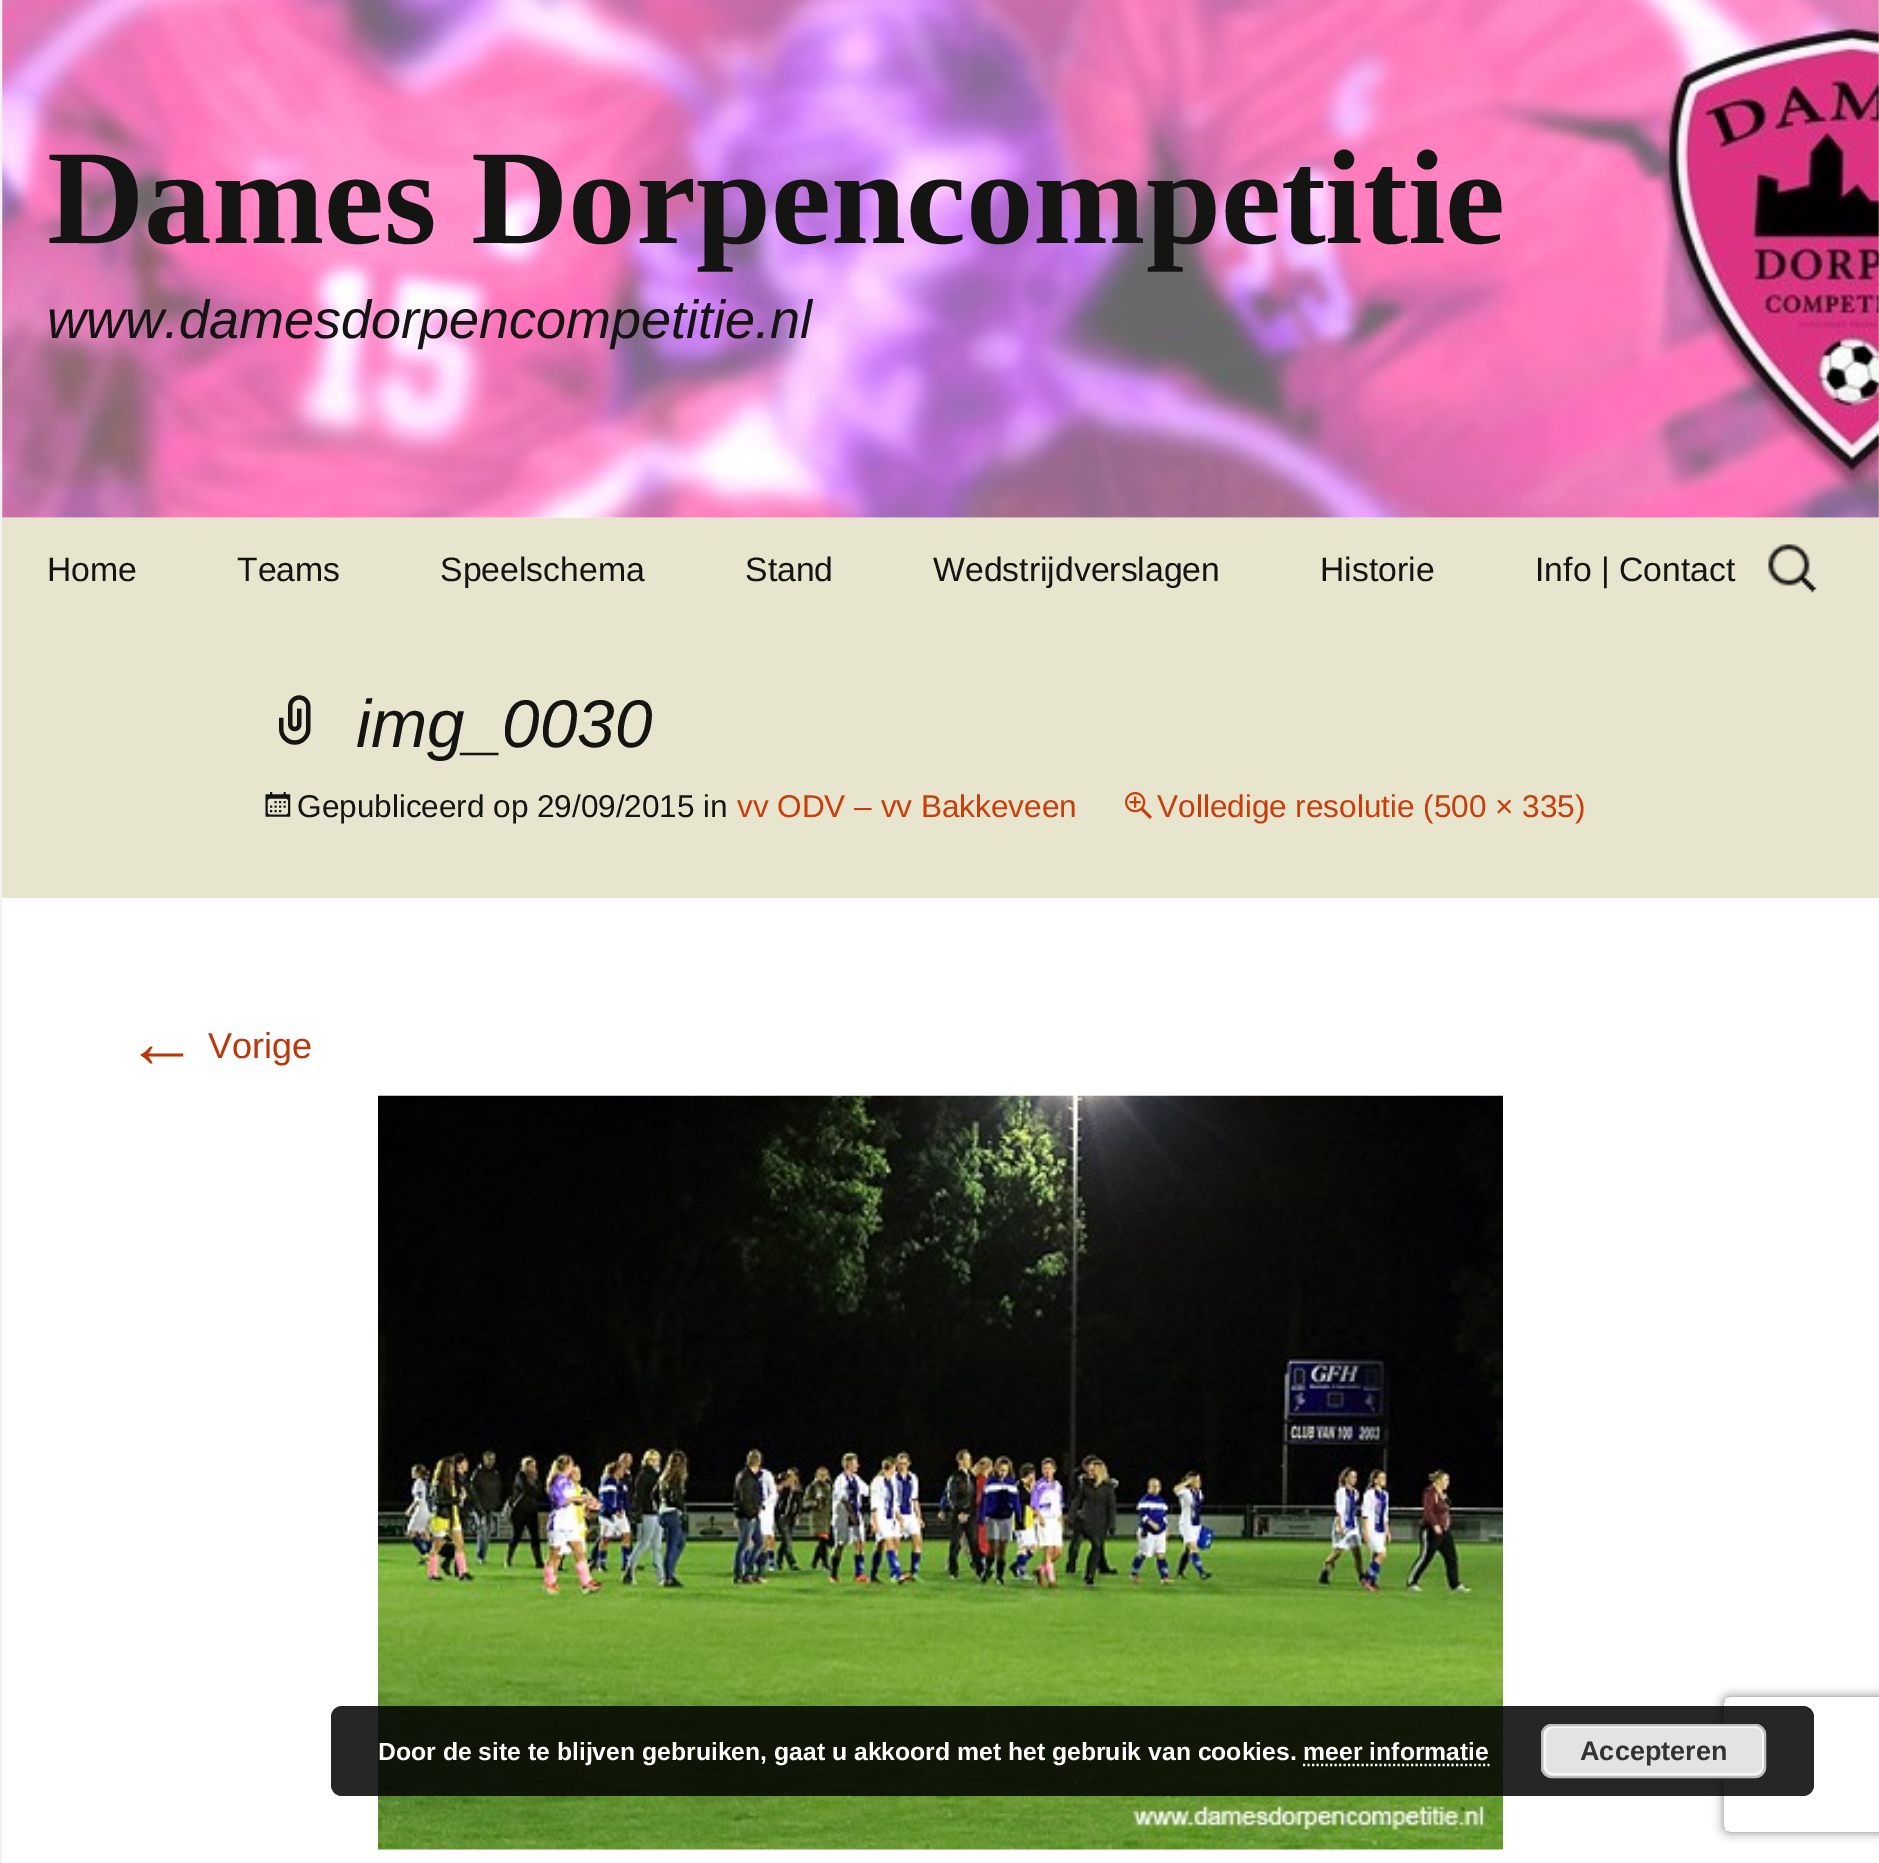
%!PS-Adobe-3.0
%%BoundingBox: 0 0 1879 1863
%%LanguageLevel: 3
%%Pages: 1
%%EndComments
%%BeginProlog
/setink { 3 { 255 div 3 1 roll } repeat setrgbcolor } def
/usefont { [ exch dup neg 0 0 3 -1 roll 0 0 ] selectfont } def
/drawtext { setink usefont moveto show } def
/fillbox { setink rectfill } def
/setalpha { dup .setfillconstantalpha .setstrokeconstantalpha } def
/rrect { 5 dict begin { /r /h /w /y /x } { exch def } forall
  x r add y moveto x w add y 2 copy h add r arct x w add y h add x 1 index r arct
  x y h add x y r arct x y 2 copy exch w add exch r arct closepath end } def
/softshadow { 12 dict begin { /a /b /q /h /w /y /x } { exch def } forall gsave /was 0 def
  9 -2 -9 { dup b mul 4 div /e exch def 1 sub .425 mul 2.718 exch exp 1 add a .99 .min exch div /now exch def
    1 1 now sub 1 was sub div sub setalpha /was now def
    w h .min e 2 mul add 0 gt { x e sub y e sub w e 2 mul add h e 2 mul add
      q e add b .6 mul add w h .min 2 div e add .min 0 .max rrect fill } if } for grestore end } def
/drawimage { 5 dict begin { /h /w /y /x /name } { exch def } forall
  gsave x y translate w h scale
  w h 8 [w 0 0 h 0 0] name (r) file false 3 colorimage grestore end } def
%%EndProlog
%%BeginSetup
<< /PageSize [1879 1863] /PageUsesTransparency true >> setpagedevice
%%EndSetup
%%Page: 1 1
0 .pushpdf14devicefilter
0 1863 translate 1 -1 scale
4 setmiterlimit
0 0 1879 1863 247 245 231 fillbox
0 0 2 1863 242 242 242 fillbox
(assets/img1.rgb) 2 0 1877 518 drawimage
(Dames Dorpencompetitie) 47 243 /LiberationSerif-Bold 135 20 20 18 drawtext
(www.damesdorpencompetitie.nl) 47 338 /LiberationSans-Italic 54 20 20 18 drawtext
2 518 1877 380 232 229 206 fillbox
(Home) 47 581 /LiberationSans-Regular 33.75 20 20 18 drawtext
(Teams) 237 581 /LiberationSans-Regular 33.75 20 20 18 drawtext
(Speelschema) 440 581 /LiberationSans-Regular 33.75 20 20 18 drawtext
(Stand) 745 581 /LiberationSans-Regular 33.75 20 20 18 drawtext
(Wedstrijdverslagen) 933 581 /LiberationSans-Regular 33.75 20 20 18 drawtext
(Historie) 1320 581 /LiberationSans-Regular 33.75 20 20 18 drawtext
(Info | Contact) 1535 581 /LiberationSans-Regular 33.75 20 20 18 drawtext
(assets/img2.rgb) 1768 544 49 49 drawimage
(assets/img3.rgb) 279 695 32 50 drawimage
(img_0030) 356 747 /LiberationSans-Italic 67.5 20 20 18 drawtext
(assets/img4.rgb) 265 792 26 25 drawimage
(Gepubliceerd op 29/09/2015 in) 297 817 /LiberationSans-Regular 31.5 20 20 18 drawtext
(vv ODV – vv Bakkeveen) 737 817 /LiberationSans-Regular 31.5 202 60 8 drawtext
(assets/img5.rgb) 1125 792 27 27 drawimage
(Volledige resolutie \(500 × 335\)) 1157 817 /LiberationSans-Regular 31.5 202 60 8 drawtext
2 898 1877 965 255 255 255 fillbox
(←) 126 1067 /LiberationSans-Regular 72 188 54 10 drawtext
(Vorige) 208 1058 /LiberationSans-Regular 36 188 54 10 drawtext
(assets/img6.rgb) 378 1095 1125 755 drawimage
gsave
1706 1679 moveto 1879 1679 lineto 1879 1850 lineto 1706 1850 lineto closepath 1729 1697 moveto 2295 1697 lineto 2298 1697 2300 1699 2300 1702 curveto 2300 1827 lineto 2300 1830 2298 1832 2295 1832 curveto 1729 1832 lineto 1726 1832 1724 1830 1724 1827 curveto 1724 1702 lineto 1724 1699 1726 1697 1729 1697 curveto closepath eoclip newpath
128 128 128 setink
1724 1697 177 135 5 5.5 1 softshadow
grestore
0.85 setalpha
0 0 0 setink
331 1706 1483 90 11 rrect fill
1 setalpha
(Door de site te blijven gebruiken, gaat u akkoord met het gebruik van cookies. meer informatie) 378 1760 /LiberationSans-Bold 24.75 255 255 255 drawtext
227 227 227 setink
1541 1724 225 54 11 rrect fill
246 246 246 setink
2 setlinewidth
1545 1727 218 47 8 rrect stroke
187 187 187 setink
1542 1725 223 52 10 rrect stroke
(Accepteren) 1580 1760 /LiberationSans-Bold 27 51 51 51 drawtext
255 255 255 setink
2.2 setlinewidth
[2.25 2.25] 0 setdash
1303 1765 moveto 1489.5 1765 lineto stroke
.poppdf14devicefilter showpage
%%EOF
